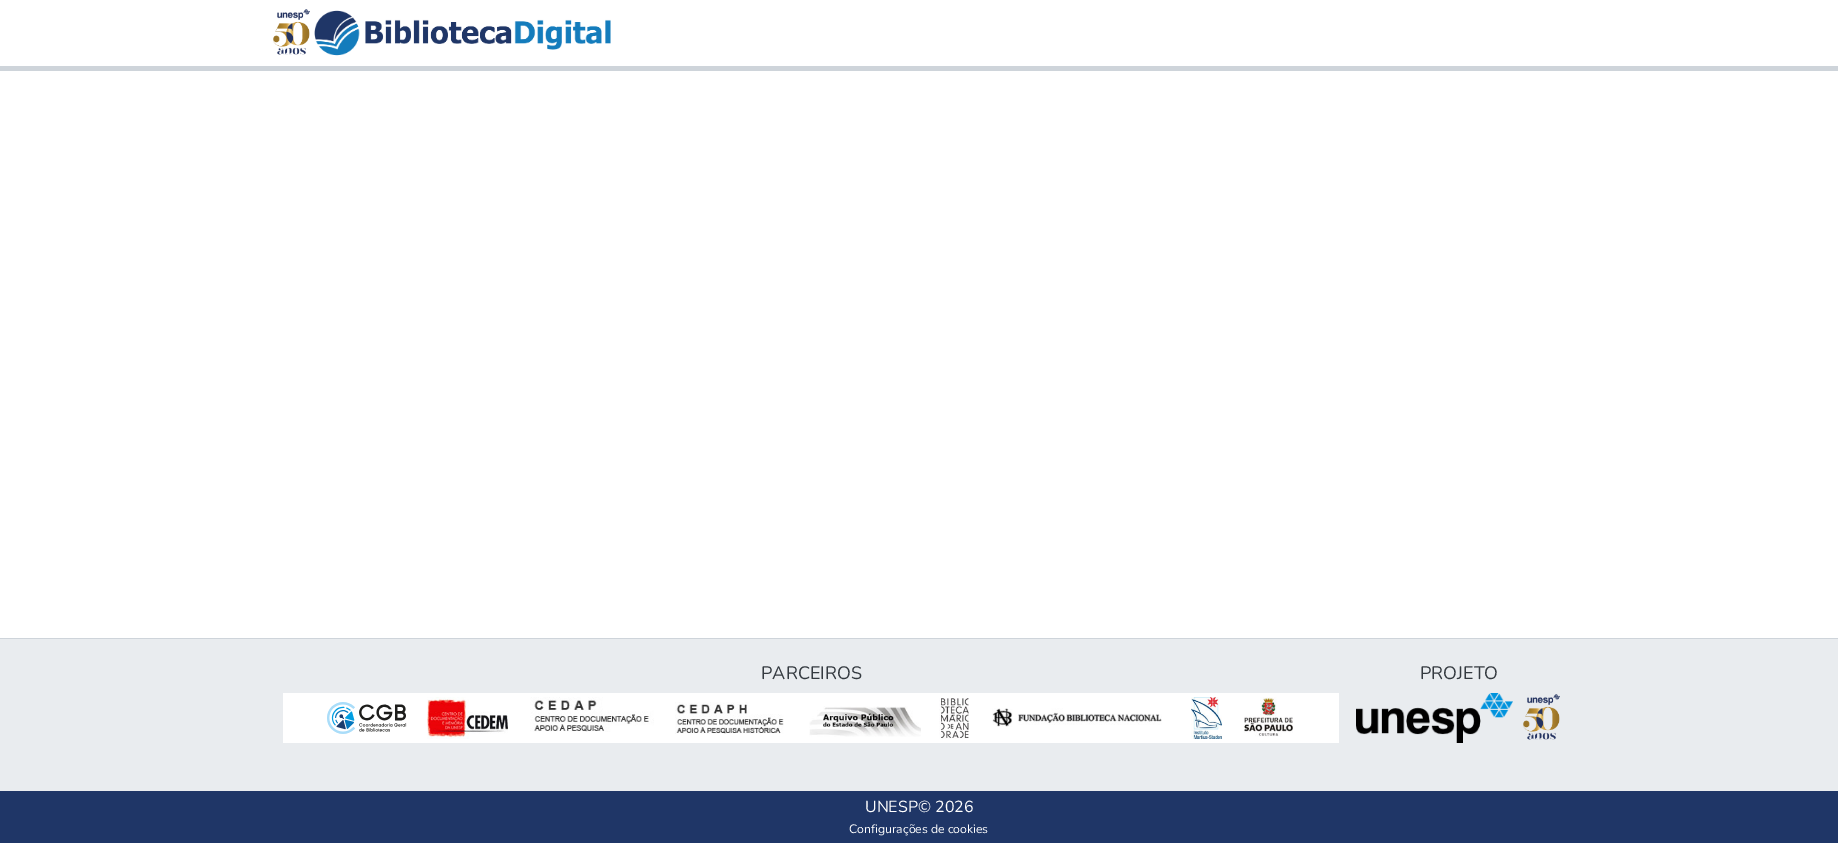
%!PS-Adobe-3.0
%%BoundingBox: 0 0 1838 843
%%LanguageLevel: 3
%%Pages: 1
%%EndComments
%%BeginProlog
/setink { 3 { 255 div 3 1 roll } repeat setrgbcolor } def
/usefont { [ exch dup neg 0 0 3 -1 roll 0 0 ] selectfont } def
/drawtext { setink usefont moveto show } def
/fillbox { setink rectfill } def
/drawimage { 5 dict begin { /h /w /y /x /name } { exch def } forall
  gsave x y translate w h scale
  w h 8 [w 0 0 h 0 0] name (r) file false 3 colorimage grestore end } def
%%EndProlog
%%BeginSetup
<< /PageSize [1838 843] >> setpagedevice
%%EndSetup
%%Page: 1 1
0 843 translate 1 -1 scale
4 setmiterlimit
0 0 1838 843 255 255 255 fillbox
0 66 1838 5 206 212 218 fillbox
(assets/img1.rgb) 273 9 37 46 drawimage
(assets/img2.rgb) 314 10 297 46 drawimage
0 638 1838 1 206 212 218 fillbox
0 639 1838 152 233 236 239 fillbox
(PARCEIROS) 761 679 /Nunito-Regular 18 52 58 64 drawtext
283 693 1056 50 255 255 255 fillbox
(assets/img3.rgb) 327 702 80 32 drawimage
(assets/img4.rgb) 427 697 81 42 drawimage
(assets/img5.rgb) 530 697 124 35 drawimage
(assets/img6.rgb) 675 702 109 32 drawimage
(assets/img7.rgb) 809 706 112 31 drawimage
(assets/img8.rgb) 939 698 30 41 drawimage
(assets/img9.rgb) 992 708 170 19 drawimage
(assets/img10.rgb) 1191 697 31 42 drawimage
(assets/img11.rgb) 1244 697 49 40 drawimage
(PROJETO) 1420 679 /Nunito-Regular 18 52 58 64 drawtext
(assets/img12.rgb) 1356 693 157 50 drawimage
(assets/img13.rgb) 1523 694 37 46 drawimage
0 791 1838 52 31 54 103 fillbox
(UNESP© 2026) 865 812 /Nunito-Regular 16 255 255 255 drawtext
(Configurações de cookies) 849 833 /Nunito-Regular 12.25 255 255 255 drawtext
showpage
%%EOF
